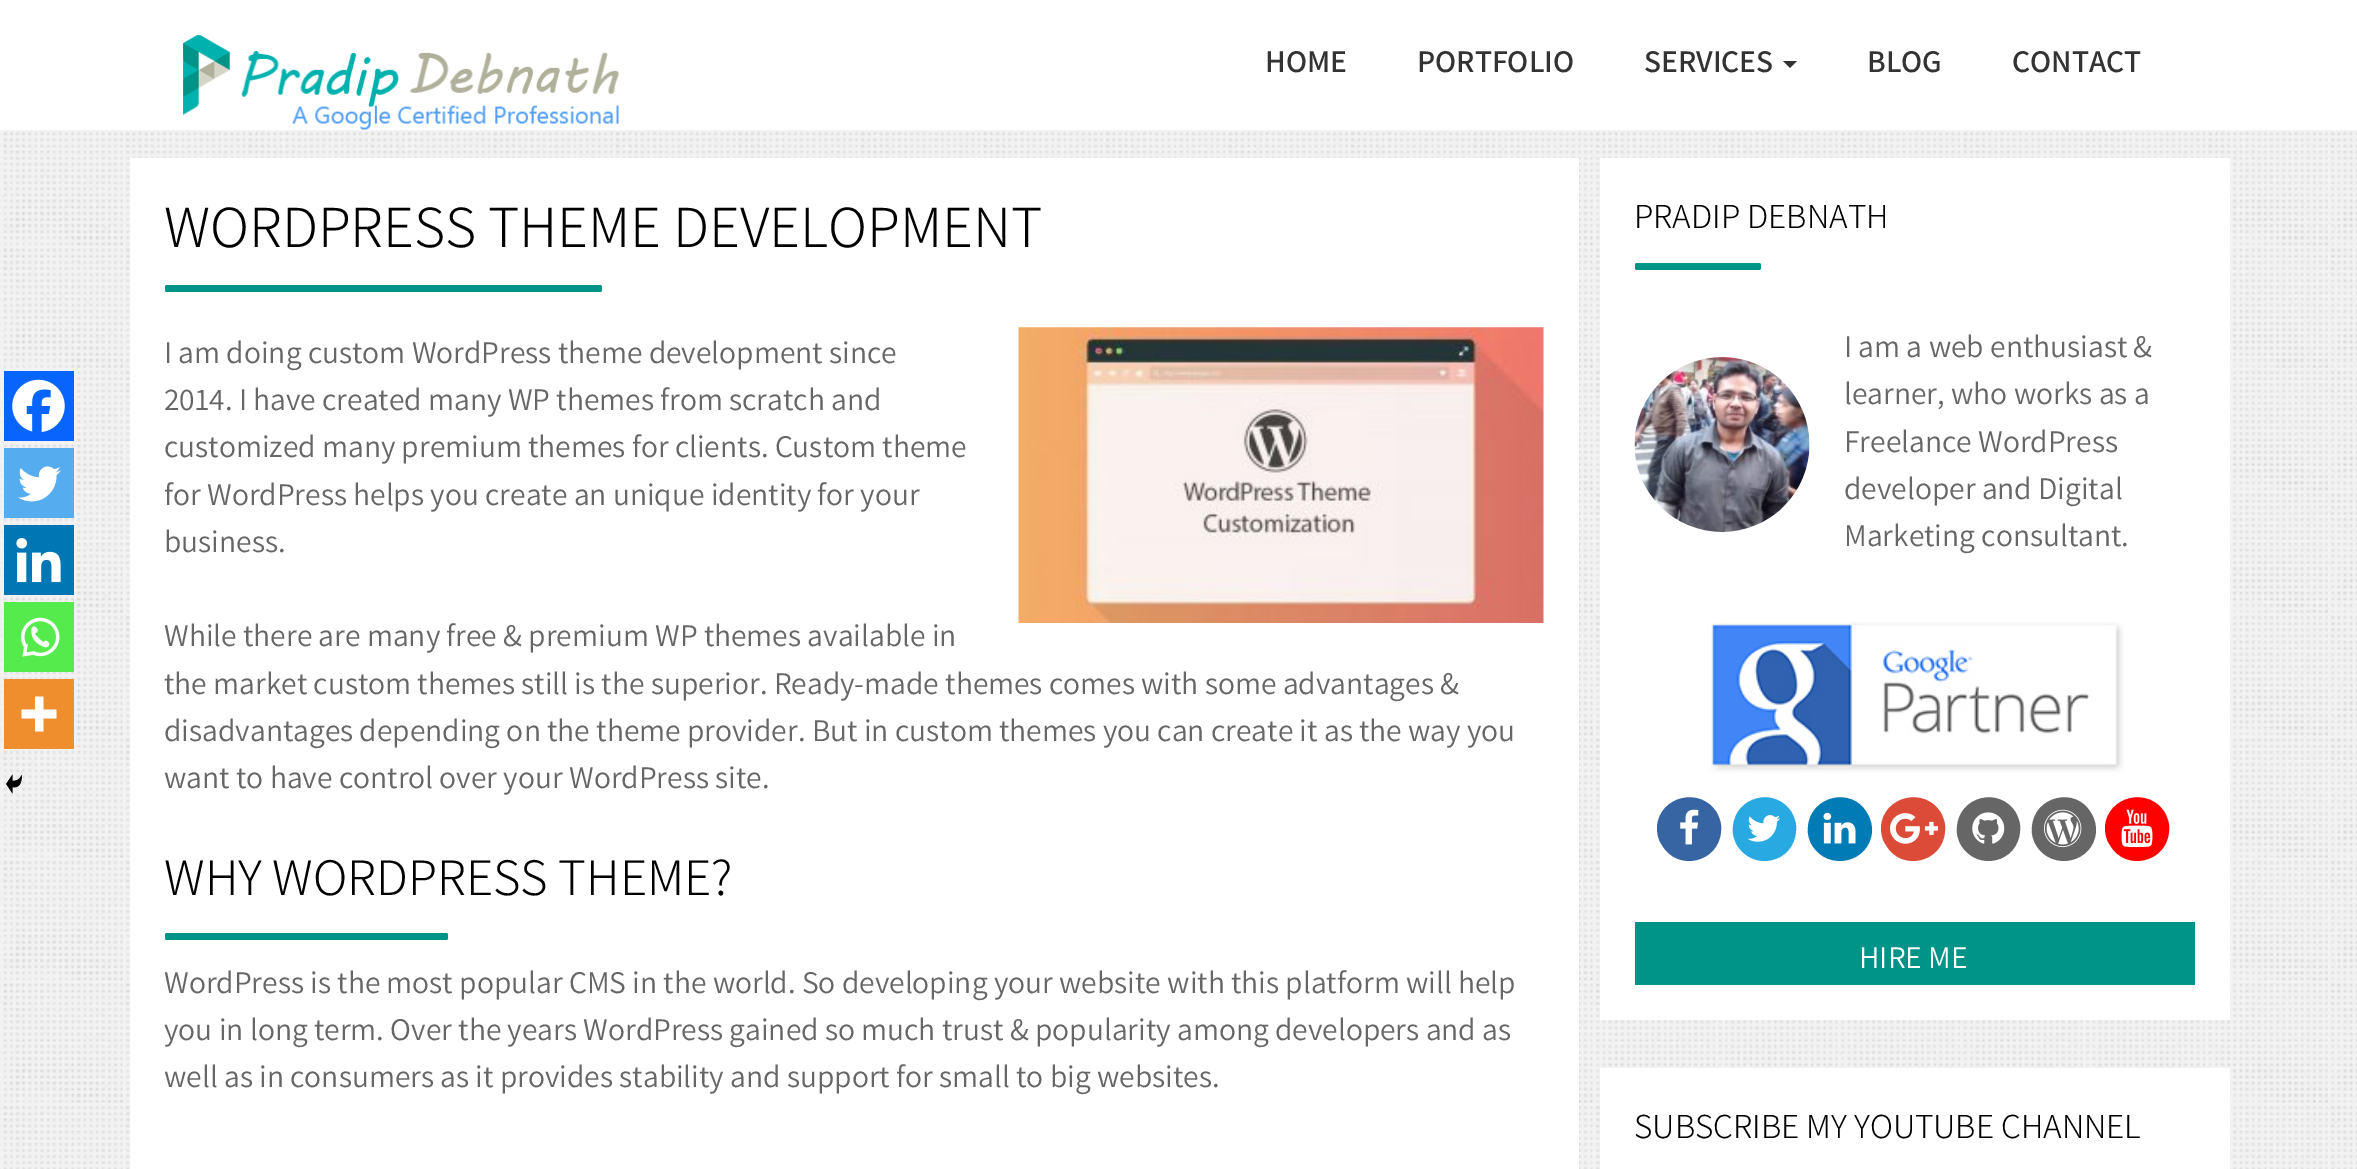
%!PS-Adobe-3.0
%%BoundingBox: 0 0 2357 1169
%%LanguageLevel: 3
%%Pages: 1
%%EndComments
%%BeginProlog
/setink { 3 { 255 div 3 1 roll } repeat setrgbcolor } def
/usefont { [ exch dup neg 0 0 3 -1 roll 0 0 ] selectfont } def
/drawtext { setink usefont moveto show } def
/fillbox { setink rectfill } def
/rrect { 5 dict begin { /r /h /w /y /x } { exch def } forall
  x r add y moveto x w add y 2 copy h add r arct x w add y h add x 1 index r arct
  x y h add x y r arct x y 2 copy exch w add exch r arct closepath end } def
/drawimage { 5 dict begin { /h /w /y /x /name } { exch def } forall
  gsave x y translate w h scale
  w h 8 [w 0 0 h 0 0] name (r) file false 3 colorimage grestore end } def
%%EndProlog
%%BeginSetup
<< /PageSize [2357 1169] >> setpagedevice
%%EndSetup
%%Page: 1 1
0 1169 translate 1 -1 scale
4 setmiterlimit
0 0 2357 1169 244 244 244 fillbox
(assets/img1.rgb) 0 131 2357 1038 drawimage
0 0 2357 130 255 255 255 fillbox
(assets/img2.rgb) 183 35 436 95 drawimage
(HOME) 1265 72 /Assistant-SemiBold 31.5 51 51 51 drawtext
(PORTFOLIO) 1417 72 /Assistant-SemiBold 31.5 51 51 51 drawtext
(SERVICES) 1644 72 /Assistant-SemiBold 31.5 51 51 51 drawtext
1783 61 moveto 1797 61 lineto 1790 68 lineto closepath fill
(BLOG) 1867 72 /Assistant-SemiBold 31.5 51 51 51 drawtext
(CONTACT) 2012 72 /Assistant-SemiBold 31.5 51 51 51 drawtext
130 158 1449 1011 255 255 255 fillbox
(WORDPRESS THEME DEVELOPMENT) 164 247 /Assistant-Light 59.5 0 0 0 drawtext
0 147 135 setink
165 285 437 7 2 rrect fill
4 371 70 70 7 101 254 fillbox
(assets/img3.rgb) 12 379 53 53 drawimage
4 448 70 70 85 172 238 fillbox
(assets/img4.rgb) 18 466 43 36 drawimage
4 525 70 70 0 119 181 fillbox
(assets/img5.rgb) 16 537 45 46 drawimage
4 602 70 70 85 235 76 fillbox
(assets/img6.rgb) 21 617 39 40 drawimage
4 679 70 70 238 142 45 fillbox
255 255 255 setink
43.5 709.5 moveto 43.5 696.5 lineto 35 696.5 lineto 35 709.5 lineto 21.5 709.5 lineto 21.5 718.5 lineto 35 718.5 lineto 35 731.5 lineto 43.5 731.5 lineto 43.5 718.5 lineto 56.5 718.5 lineto 56.5 709.5 lineto closepath eofill
(assets/img7.rgb) 6 774 16 20 drawimage
(I am doing custom WordPress theme development since) 164 363 /Assistant-Regular 31.5 102 102 102 drawtext
(assets/img8.rgb) 1018 327 526 296 drawimage
(2014. I have created many WP themes from scratch and) 164 410 /Assistant-Regular 31.5 102 102 102 drawtext
(customized many premium themes for clients. Custom theme) 164 457 /Assistant-Regular 31.5 102 102 102 drawtext
(for WordPress helps you create an unique identity for your) 164 505 /Assistant-Regular 31.5 102 102 102 drawtext
(business.) 164 552 /Assistant-Regular 31.5 102 102 102 drawtext
(While there are many free & premium WP themes available in) 164 646 /Assistant-Regular 31.5 102 102 102 drawtext
(the market custom themes still is the superior. Ready-made themes comes with some advantages &) 164 694 /Assistant-Regular 31.5 102 102 102 drawtext
(disadvantages depending on the theme provider. But in custom themes you can create it as the way you) 164 741 /Assistant-Regular 31.5 102 102 102 drawtext
(want to have control over your WordPress site.) 164 788 /Assistant-Regular 31.5 102 102 102 drawtext
(WHY WORDPRESS THEME?) 164 895 /Assistant-Light 52.5 0 0 0 drawtext
0 147 135 setink
165 933 283 7 2 rrect fill
(WordPress is the most popular CMS in the world. So developing your website with this platform will help) 164 993 /Assistant-Regular 31.5 102 102 102 drawtext
(you in long term. Over the years WordPress gained so much trust & popularity among developers and as) 164 1040 /Assistant-Regular 31.5 102 102 102 drawtext
(well as in consumers as it provides stability and support for small to big websites.) 164 1087 /Assistant-Regular 31.5 102 102 102 drawtext
1600 158 630 862 255 255 255 fillbox
(PRADIP DEBNATH) 1634 228 /Assistant-Light 35 0 0 0 drawtext
0 147 135 setink
1635 263 126 7 2 rrect fill
(assets/img9.rgb) 1634 357 176 175 drawimage
(I am a web enthusiast &) 1844 357 /Assistant-Regular 31.5 102 102 102 drawtext
(learner, who works as a) 1844 404 /Assistant-Regular 31.5 102 102 102 drawtext
(Freelance WordPress) 1844 452 /Assistant-Regular 31.5 102 102 102 drawtext
(developer and Digital) 1844 499 /Assistant-Regular 31.5 102 102 102 drawtext
(Marketing consultant.) 1844 546 /Assistant-Regular 31.5 102 102 102 drawtext
(assets/img10.rgb) 1707 622 417 151 drawimage
55 101 163 setink
1717 813 moveto 1720 819 1722 825 1721 831 curveto 1719 863 1677 872 1662 845 curveto 1658 840 1657 833 1657 827 curveto 1659 796 1701 786 1717 813 curveto closepath fill
(assets/img11.rgb) 1680 809 19 36 drawimage
40 169 226 setink
1792 813 moveto 1795 819 1797 825 1796 831 curveto 1794 863 1753 872 1737 845 curveto 1734 840 1732 833 1733 827 curveto 1735 796 1776 786 1792 813 curveto closepath fill
(assets/img12.rgb) 1747 815 34 27 drawimage
0 123 182 setink
1867 813 moveto 1871 819 1872 825 1872 831 curveto 1870 863 1828 872 1812 845 curveto 1809 840 1807 833 1808 827 curveto 1810 796 1852 786 1867 813 curveto closepath fill
(assets/img13.rgb) 1823 812 33 32 drawimage
220 74 56 setink
1941 813 moveto 1944 819 1946 825 1945 831 curveto 1943 863 1901 872 1886 845 curveto 1882 840 1881 833 1881 827 curveto 1883 796 1925 786 1941 813 curveto closepath fill
(assets/img14.rgb) 1890 813 48 31 drawimage
102 102 102 setink
2016 813 moveto 2019 819 2021 825 2020 831 curveto 2018 863 1977 872 1961 845 curveto 1958 840 1956 833 1957 827 curveto 1959 796 2000 786 2016 813 curveto closepath fill
(assets/img15.rgb) 1972 812 33 32 drawimage
2091 813 moveto 2095 819 2096 825 2096 831 curveto 2094 863 2052 872 2036 845 curveto 2033 840 2031 833 2032 827 curveto 2034 796 2076 786 2091 813 curveto closepath fill
(assets/img16.rgb) 2044 809 38 39 drawimage
255 0 0 setink
2165 813 moveto 2168 819 2170 825 2169 831 curveto 2167 863 2125 872 2110 845 curveto 2106 840 2105 833 2105 827 curveto 2107 796 2149 786 2165 813 curveto closepath fill
(assets/img17.rgb) 2121 809 32 39 drawimage
1635 922 560 63 0 147 135 fillbox
(HIRE ME) 1859 968 /Assistant-Regular 31.5 255 255 255 drawtext
1600 1068 630 101 255 255 255 fillbox
(SUBSCRIBE MY YOUTUBE CHANNEL) 1634 1138 /Assistant-Light 35 0 0 0 drawtext
showpage
%%EOF
